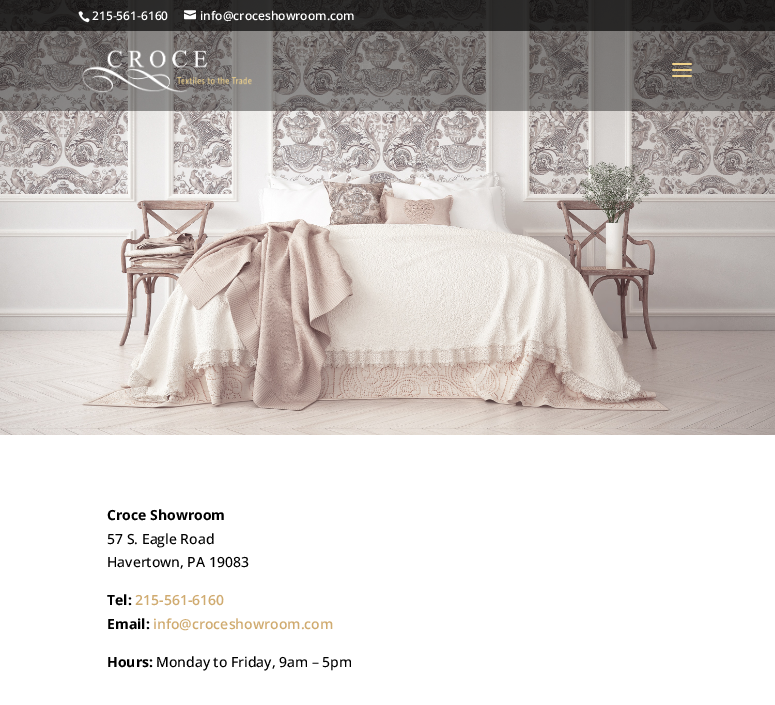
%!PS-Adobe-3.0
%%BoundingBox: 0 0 775 705
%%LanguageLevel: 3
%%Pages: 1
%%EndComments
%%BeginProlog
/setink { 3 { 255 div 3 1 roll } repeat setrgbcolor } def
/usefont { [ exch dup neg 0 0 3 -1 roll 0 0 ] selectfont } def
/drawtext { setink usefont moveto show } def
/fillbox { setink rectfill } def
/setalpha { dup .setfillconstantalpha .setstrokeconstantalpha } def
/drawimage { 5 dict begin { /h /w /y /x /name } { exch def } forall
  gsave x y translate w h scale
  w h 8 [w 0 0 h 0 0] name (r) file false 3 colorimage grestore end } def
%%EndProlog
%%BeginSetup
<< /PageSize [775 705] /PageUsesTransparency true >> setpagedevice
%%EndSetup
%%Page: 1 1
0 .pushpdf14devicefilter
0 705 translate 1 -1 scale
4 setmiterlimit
0 0 775 705 255 255 255 fillbox
(assets/img5.rgb) 0 0 775 435 drawimage
0.8 setalpha
0 0 775 31 0 0 0 fillbox
1 setalpha
(assets/img1.rgb) 78 11 12 12 drawimage
(215-561-6160) 92 20 /OpenSans-SemiBold 12 255 255 255 drawtext
(assets/img2.rgb) 184 10 12 10 drawimage
(info@croceshowroom.com) 200 20 /OpenSans-SemiBold 12 255 255 255 drawtext
0.39 setalpha
0 31 775 80 0 0 0 fillbox
1 setalpha
(assets/img3.rgb) 82 50 170 43 drawimage
(assets/img4.rgb) 672 63 20 14 drawimage
(Croce Showroom) 107 520 /OpenSans-Bold 14 0 0 0 drawtext
(57 S. Eagle Road) 107 544 /OpenSans-Medium 14 0 0 0 drawtext
(Havertown, PA 19083) 107 567 /OpenSans-Medium 14 0 0 0 drawtext
(Tel:) 107 605 /OpenSans-Bold 14 0 0 0 drawtext
(215-561-6160) 135 605 /OpenSans-SemiBold 14 208 171 112 drawtext
(Email:) 107 629 /OpenSans-Bold 14 0 0 0 drawtext
(info@croceshowroom.com) 153 629 /OpenSans-SemiBold 14 208 171 112 drawtext
(Hours:) 107 667 /OpenSans-Bold 14 0 0 0 drawtext
(Monday to Friday, 9am – 5pm) 156 667 /OpenSans-Medium 14 0 0 0 drawtext
.poppdf14devicefilter showpage
%%EOF
